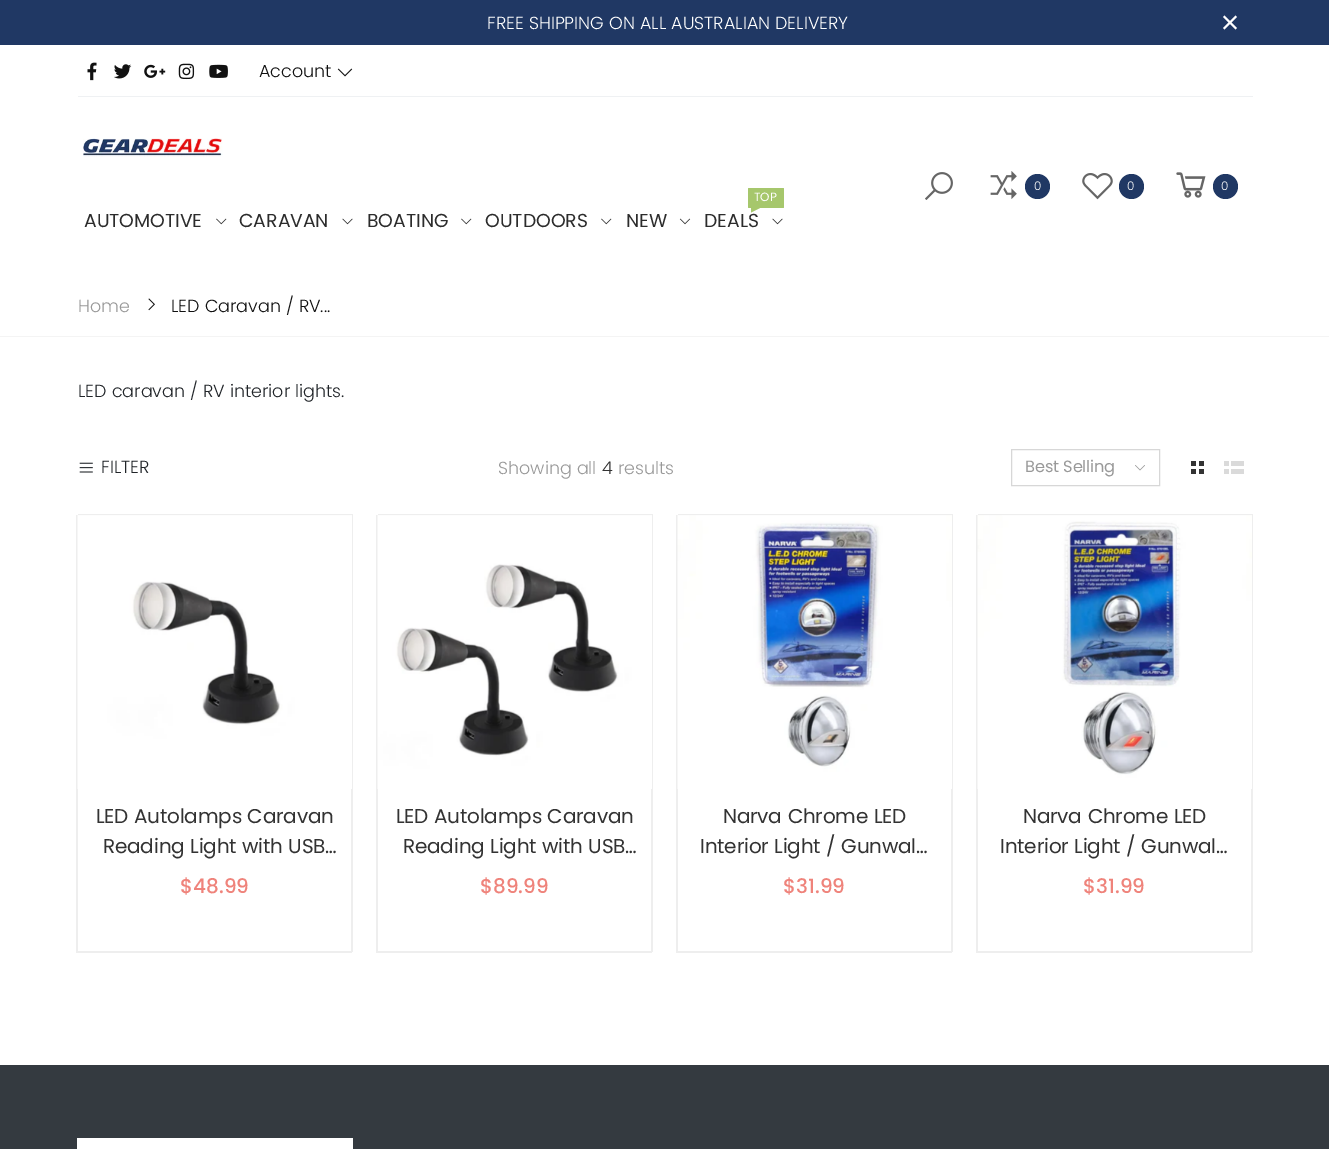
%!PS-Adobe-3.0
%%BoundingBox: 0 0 1329 1149
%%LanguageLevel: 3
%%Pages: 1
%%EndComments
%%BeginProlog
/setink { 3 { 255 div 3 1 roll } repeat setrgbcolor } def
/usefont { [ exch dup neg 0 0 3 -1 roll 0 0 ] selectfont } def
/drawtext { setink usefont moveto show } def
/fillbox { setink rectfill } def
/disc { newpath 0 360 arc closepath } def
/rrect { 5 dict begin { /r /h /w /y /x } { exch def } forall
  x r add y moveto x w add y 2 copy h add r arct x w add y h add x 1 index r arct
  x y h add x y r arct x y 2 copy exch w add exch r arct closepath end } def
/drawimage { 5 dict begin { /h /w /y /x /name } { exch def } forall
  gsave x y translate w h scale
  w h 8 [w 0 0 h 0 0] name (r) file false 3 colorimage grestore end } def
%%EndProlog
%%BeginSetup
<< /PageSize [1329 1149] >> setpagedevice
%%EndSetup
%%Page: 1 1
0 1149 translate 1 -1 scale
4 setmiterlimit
0 0 1329 1149 255 255 255 fillbox
0 0 1329 45 32 56 100 fillbox
(FREE SHIPPING ON ALL AUSTRALIAN DELIVERY) 487 29 /Poppins-Light 17.5 255 255 255 drawtext
1224.5 15.5 moveto 1237 28 lineto 1235.5 29.5 lineto 1223 17 lineto closepath fill
1223 28 moveto 1235.5 15.5 lineto 1237 17 lineto 1224.5 29.5 lineto closepath fill
(assets/img1.rgb) 87 62 10 19 drawimage
(assets/img2.rgb) 114 64 18 15 drawimage
(assets/img3.rgb) 144 64 22 14 drawimage
(assets/img4.rgb) 178 63 17 17 drawimage
(assets/img5.rgb) 209 64 19 14 drawimage
(Account) 259 77 /Poppins-Light 17.5 17 17 17 drawtext
(assets/img6.rgb) 337 68 16 9 drawimage
78 96 1175 1 239 241 243 fillbox
(assets/img7.rgb) 925 172 28 28 drawimage
(assets/img8.rgb) 990 171 27 28 drawimage
32 56 100 setink
1037.5 186.5 12.5 disc fill
(0) 1034 190 /Poppins-Light 12 255 255 255 drawtext
(assets/img9.rgb) 1082 173 31 27 drawimage
32 56 100 setink
1131.5 186.5 12.5 disc fill
(0) 1127 190 /Poppins-Light 12 255 255 255 drawtext
(assets/img10.rgb) 1176 172 30 26 drawimage
32 56 100 setink
1225.5 186.5 12.5 disc fill
(0) 1221 190 /Poppins-Light 12 255 255 255 drawtext
(assets/img11.rgb) 83 138 140 19 drawimage
(AUTOMOTIVE) 84 227 /Poppins-Regular 18.75 44 44 44 drawtext
(assets/img12.rgb) 216 218 11 7 drawimage
(CARAVAN) 239 227 /Poppins-Regular 18.75 44 44 44 drawtext
(assets/img13.rgb) 342 218 11 7 drawimage
(BOATING) 367 227 /Poppins-Regular 18.75 44 44 44 drawtext
(assets/img12.rgb) 461 218 11 7 drawimage
(OUTDOORS) 485 227 /Poppins-Regular 18.75 44 44 44 drawtext
(assets/img12.rgb) 601 218 11 7 drawimage
(NEW) 626 227 /Poppins-Regular 18.75 44 44 44 drawtext
(assets/img14.rgb) 679 218 12 7 drawimage
166 199 108 setink
748 188 36 20 1 rrect fill
(TOP) 754 201 /Poppins-Regular 12 255 255 255 drawtext
166 199 108 setink
751 206 moveto 764 206 lineto 751 212.5 lineto closepath fill
(DEALS) 704 227 /Poppins-Regular 18.75 44 44 44 drawtext
(assets/img13.rgb) 772 218 11 7 drawimage
(Home) 78 312 /Poppins-Light 17.5 153 153 153 drawtext
(assets/img15.rgb) 148 298 7 13 drawimage
(LED Caravan / RV...) 171 312 /Poppins-Light 17.5 17 17 17 drawtext
0 336 1329 1 244 244 244 fillbox
(LED caravan / RV interior lights.) 78 397 /Poppins-Light 17.5 33 37 41 drawtext
(assets/img16.rgb) 79 462 14 11 drawimage
(FILTER) 101 473 /Poppins-Light 17.5 33 37 41 drawtext
(Showing all) 498 474 /Poppins-Light 17.5 153 153 153 drawtext
(4) 602 474 /Poppins-Light 17.5 51 51 51 drawtext
(results) 618 474 /Poppins-Light 17.5 153 153 153 drawtext
215 215 215 setink
1011.5 449.5 148 36 rectstroke
/Poppins-Regular 16.25 usefont
153 153 153 setink
1025 472 moveto -0.2 0 (Best Selling) ashow
(assets/img17.rgb) 1135 465 10 6 drawimage
1191 461 5 5 51 51 51 fillbox
1199 461 5 5 51 51 51 fillbox
1191 469 5 5 51 51 51 fillbox
1199 469 5 5 51 51 51 fillbox
1224 461 5 5 218 218 218 fillbox
1231 461 13 5 218 218 218 fillbox
1224 469 5 5 218 218 218 fillbox
1231 469 13 5 218 218 218 fillbox
238 238 238 setink
76 515 moveto 76 953 lineto 351 953 lineto 351 952 lineto 78 952 lineto 78 515 lineto closepath fill
78 514 moveto 78 515 lineto 352 515 lineto 352 951 lineto 353 951 lineto 353 514 lineto closepath fill
351 515 1 438 238 238 238 fillbox
78 951 275 1 238 238 238 fillbox
(assets/img18.rgb) 77 515 275 274 drawimage
/Poppins-Regular 20 usefont
51 51 51 setink
96 823 moveto -0.2 0 (LED Autolamps Caravan) ashow
103 853 moveto -0.2 0 (Reading Light with USB…) ashow
($48.99) 180 893 /Poppins-Medium 20 239 131 123 drawtext
238 238 238 setink
376 515 moveto 376 953 lineto 651 953 lineto 651 952 lineto 378 952 lineto 378 515 lineto closepath fill
378 514 moveto 378 515 lineto 652 515 lineto 652 951 lineto 653 951 lineto 653 514 lineto closepath fill
651 515 1 438 238 238 238 fillbox
378 951 275 1 238 238 238 fillbox
(assets/img19.rgb) 377 515 275 274 drawimage
/Poppins-Regular 20 usefont
51 51 51 setink
396 823 moveto -0.2 0 (LED Autolamps Caravan) ashow
403 853 moveto -0.2 0 (Reading Light with USB…) ashow
($89.99) 480 893 /Poppins-Medium 20 239 131 123 drawtext
238 238 238 setink
676 515 moveto 676 953 lineto 951 953 lineto 951 952 lineto 678 952 lineto 678 515 lineto closepath fill
678 514 moveto 678 515 lineto 952 515 lineto 952 951 lineto 953 951 lineto 953 514 lineto closepath fill
951 515 1 438 238 238 238 fillbox
678 951 275 1 238 238 238 fillbox
(assets/img20.rgb) 677 515 275 274 drawimage
/Poppins-Regular 20 usefont
51 51 51 setink
723 823 moveto -0.2 0 (Narva Chrome LED) ashow
700 853 moveto -0.2 0 (Interior Light / Gunwal…) ashow
($31.99) 783 893 /Poppins-Medium 20 239 131 123 drawtext
238 238 238 setink
976 515 moveto 976 953 lineto 1251 953 lineto 1251 952 lineto 978 952 lineto 978 515 lineto closepath fill
978 514 moveto 978 515 lineto 1252 515 lineto 1252 951 lineto 1253 951 lineto 1253 514 lineto closepath fill
1251 515 1 438 238 238 238 fillbox
978 951 275 1 238 238 238 fillbox
(assets/img21.rgb) 977 515 275 274 drawimage
/Poppins-Regular 20 usefont
51 51 51 setink
1023 823 moveto -0.2 0 (Narva Chrome LED) ashow
1000 853 moveto -0.2 0 (Interior Light / Gunwal…) ashow
($31.99) 1083 893 /Poppins-Medium 20 239 131 123 drawtext
0 1065 1329 84 52 58 64 fillbox
77 1138 276 11 255 255 255 fillbox
showpage
%%EOF
